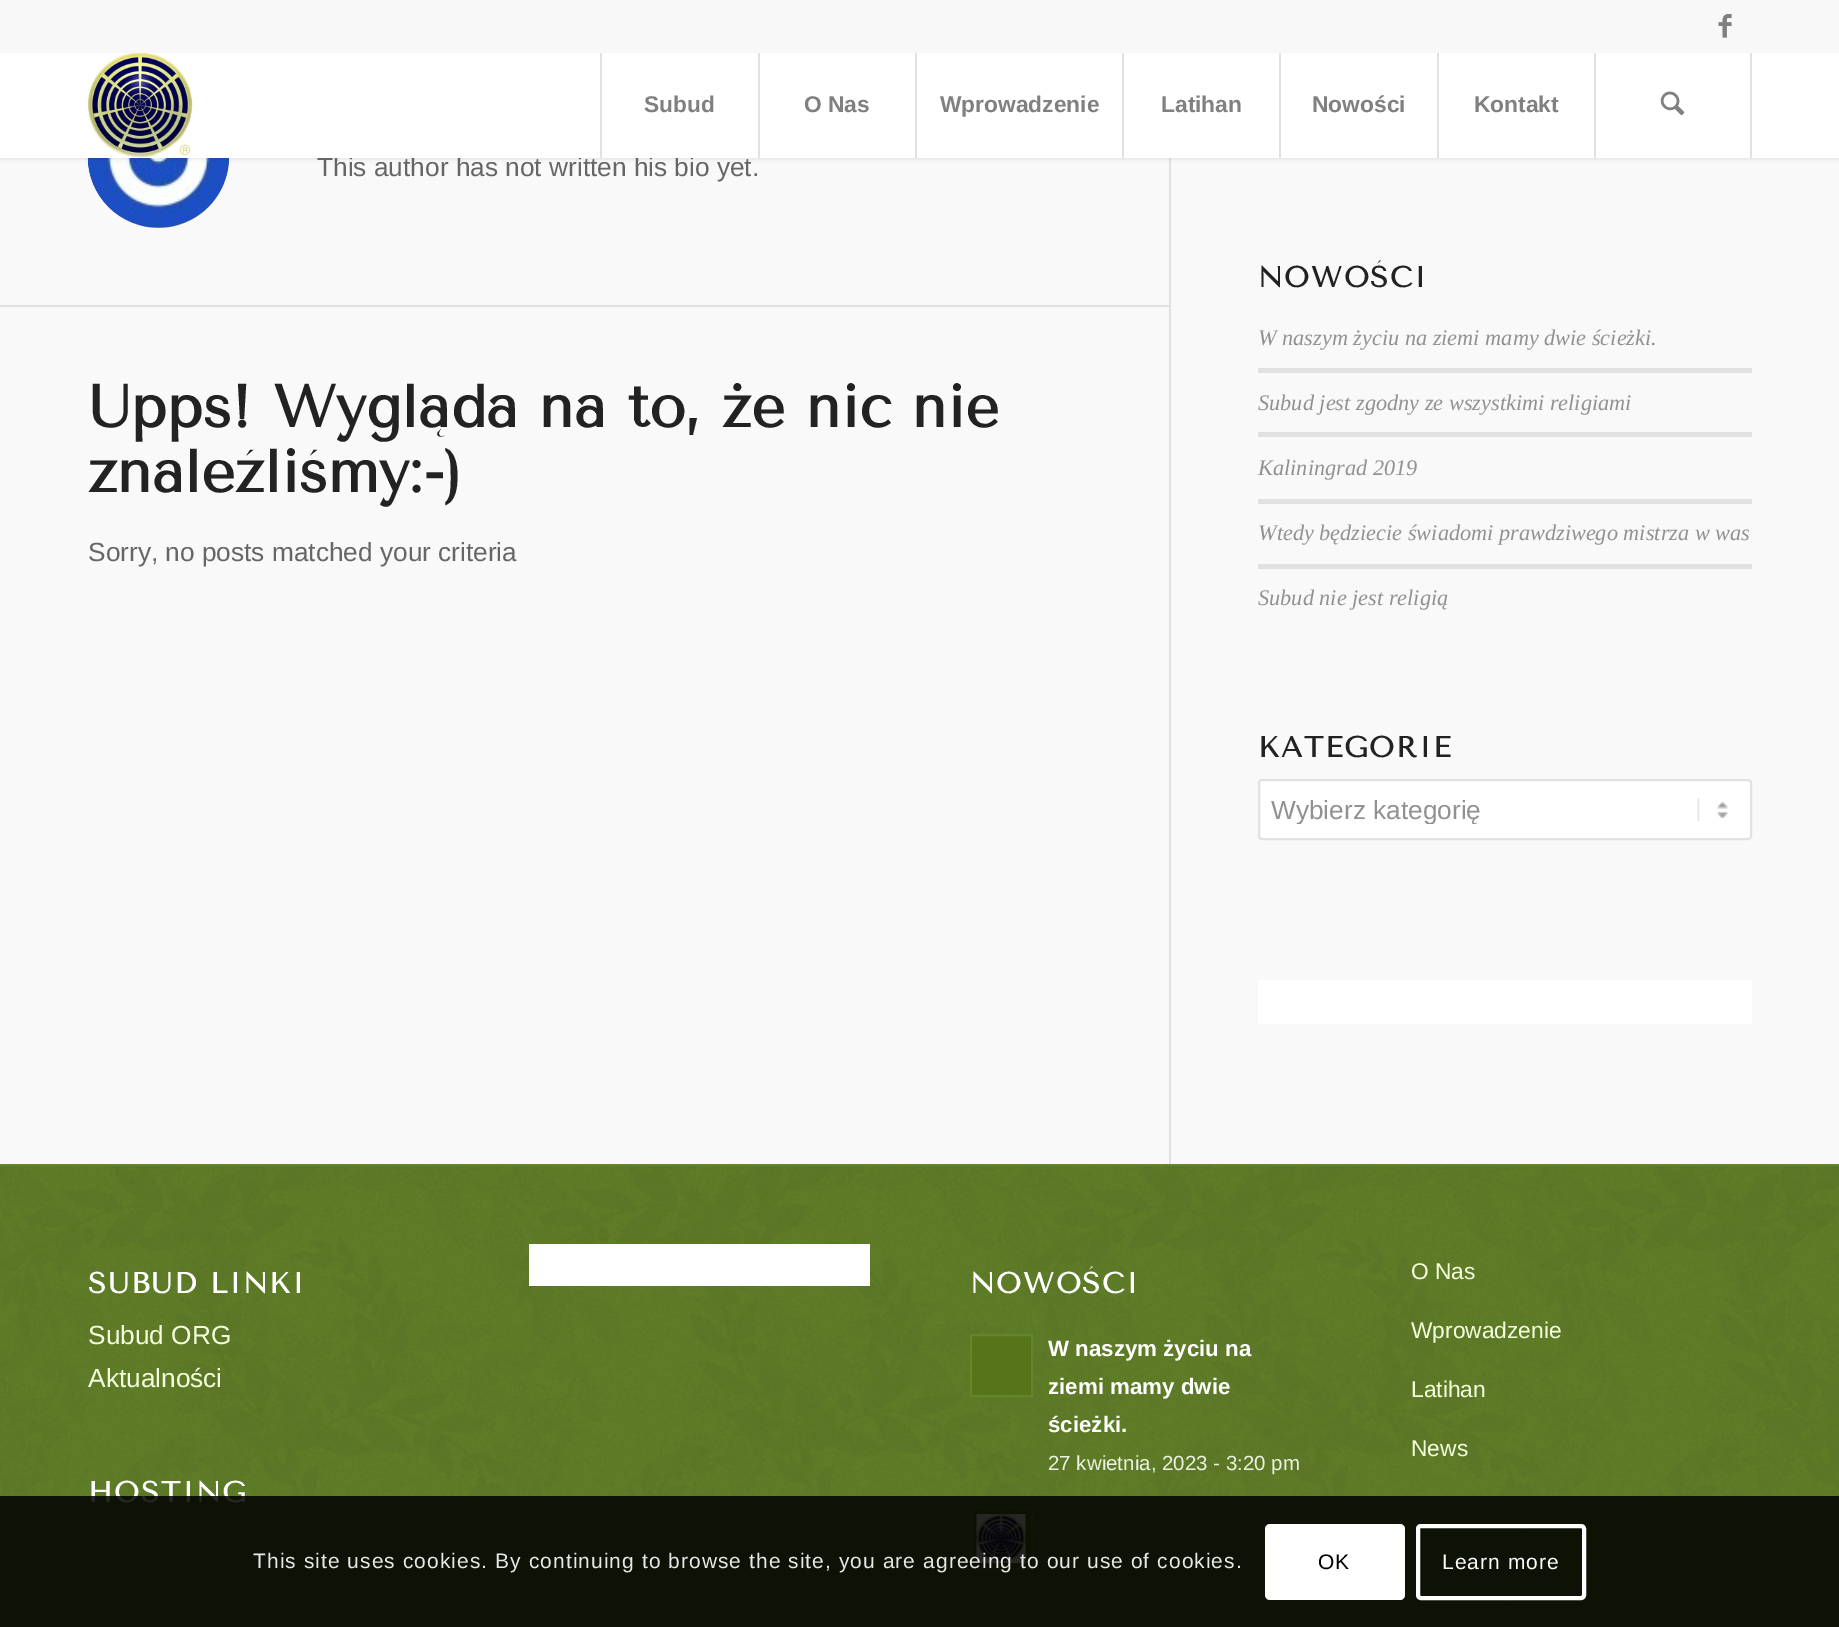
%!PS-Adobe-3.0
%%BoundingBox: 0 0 1839 1627
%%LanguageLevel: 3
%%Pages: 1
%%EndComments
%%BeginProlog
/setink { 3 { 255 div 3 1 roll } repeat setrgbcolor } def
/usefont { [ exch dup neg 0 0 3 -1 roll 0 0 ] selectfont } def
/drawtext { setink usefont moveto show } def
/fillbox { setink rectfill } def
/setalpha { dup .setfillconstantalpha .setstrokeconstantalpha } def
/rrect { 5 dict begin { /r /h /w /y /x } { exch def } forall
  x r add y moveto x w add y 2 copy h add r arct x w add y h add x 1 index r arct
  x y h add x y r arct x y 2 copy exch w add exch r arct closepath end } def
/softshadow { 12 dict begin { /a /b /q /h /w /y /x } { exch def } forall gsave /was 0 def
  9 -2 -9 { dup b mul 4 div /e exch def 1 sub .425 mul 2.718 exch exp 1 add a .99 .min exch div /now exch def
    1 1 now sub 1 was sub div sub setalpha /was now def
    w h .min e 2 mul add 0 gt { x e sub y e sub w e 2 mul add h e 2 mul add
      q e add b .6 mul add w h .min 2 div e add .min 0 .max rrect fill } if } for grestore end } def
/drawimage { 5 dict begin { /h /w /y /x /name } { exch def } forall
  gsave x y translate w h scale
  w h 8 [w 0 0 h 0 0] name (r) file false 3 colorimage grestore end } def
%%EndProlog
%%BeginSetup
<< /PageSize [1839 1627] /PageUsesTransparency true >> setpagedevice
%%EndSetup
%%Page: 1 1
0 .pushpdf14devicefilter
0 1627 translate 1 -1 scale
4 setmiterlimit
0 0 1839 1627 249 249 249 fillbox
145 145 145 setink
88 86 141 142 70.5 rrect fill
(assets/img4.rgb) 87 158 142 70 drawimage
1169 158 2 1006 225 225 225 fillbox
0 0 0 setink
-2 -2 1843 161 0 2 0.1 softshadow
0 0 1839 53 248 248 248 fillbox
(assets/img1.rgb) 1718 14 14 24 drawimage
(This author has not written his bio yet.) 317 176 /LiberationSans-Regular 26.25 102 102 102 drawtext
0 53 1839 105 255 255 255 fillbox
(assets/img2.rgb) 87 53 106 105 drawimage
600 53 2 105 225 225 225 fillbox
(Subud) 644 112 /LiberationSans-Bold 22.75 128 128 128 drawtext
758 53 2 105 225 225 225 fillbox
(O Nas) 804 112 /LiberationSans-Bold 22.75 128 128 128 drawtext
915 53 2 105 225 225 225 fillbox
(Wprowadzenie) 940 112 /LiberationSans-Bold 22.75 128 128 128 drawtext
1122 53 2 105 225 225 225 fillbox
(Latihan) 1161 112 /LiberationSans-Bold 22.75 128 128 128 drawtext
1279 53 2 105 225 225 225 fillbox
(Nowości) 1312 112 /LiberationSans-Bold 22.75 128 128 128 drawtext
1437 53 2 105 225 225 225 fillbox
(Kontakt) 1474 112 /LiberationSans-Bold 22.75 128 128 128 drawtext
1750 53 2 105 225 225 225 fillbox
1594 53 2 105 225 225 225 fillbox
(assets/img3.rgb) 1660 91 25 25 drawimage
0 305 1169 2 225 225 225 fillbox
(Upps! Wygląda na to, że nic nie) 88 427 /TenorSans-Bold 59.5 34 34 34 drawtext
(znaleźliśmy:-\)) 88 492 /TenorSans-Bold 59.5 34 34 34 drawtext
(Sorry, no posts matched your criteria) 88 561 /LiberationSans-Regular 26.25 102 102 102 drawtext
/TenorSans-Bold 29 usefont
34 34 34 setink
1258 287 moveto 1.75 0 (NOWOŚCI) ashow
(W naszym życiu na ziemi mamy dwie ścieżki.) 1258 345 /LiberationSerif-Italic 22.3 145 145 145 drawtext
1258 368 494 5 225 225 225 fillbox
(Subud jest zgodny ze wszystkimi religiami) 1258 410 /LiberationSerif-Italic 22.3 145 145 145 drawtext
1258 432 494 5 225 225 225 fillbox
(Kaliningrad 2019) 1258 475 /LiberationSerif-Italic 22.3 145 145 145 drawtext
1258 499 494 5 225 225 225 fillbox
(Wtedy będziecie świadomi prawdziwego mistrza w was) 1258 540 /LiberationSerif-Italic 22.3 145 145 145 drawtext
1258 564 494 5 225 225 225 fillbox
(Subud nie jest religią) 1258 605 /LiberationSerif-Italic 22.3 145 145 145 drawtext
/TenorSans-Bold 29 usefont
34 34 34 setink
1258 757 moveto 1.75 0 (KATEGORIE) ashow
255 255 255 setink
1258 779 494 61 4 rrect fill
(assets/img5.rgb) 1697 798 31 23 drawimage
225 225 225 setink
2 setlinewidth
1259 780 492 59 3 rrect stroke
gsave
1271 795 469 29 rectclip
(Wybierz kategorię) 1271 819 /LiberationSans-Regular 26.25 145 145 145 drawtext
grestore
1258 980 494 44 255 255 255 fillbox
0 1164 1839 463 101 133 41 fillbox
(assets/img6.rgb) 0 1166 1839 461 drawimage
255 255 255 setink
88 1293 moveto 1.75 0 (SUBUD LINKI) ashow
(Subud ORG) 88 1344 /LiberationSans-Regular 26.25 243 255 222 drawtext
(Aktualności) 88 1387 /LiberationSans-Regular 26.25 243 255 222 drawtext
/TenorSans-Bold 29 usefont
255 255 255 setink
88 1502 moveto 1.75 0 (HOSTING) ashow
529 1244 341 42 255 255 255 fillbox
970 1293 moveto 1.75 0 (NOWOŚCI) ashow
86 117 27 setink
971 1335 moveto 1032 1335 lineto 1032 1396 lineto 971 1396 lineto closepath gsave fill grestore
101 133 41 setink
stroke
(W naszym życiu na) 1048 1356 /LiberationSans-Bold 22.3 255 255 255 drawtext
(ziemi mamy dwie) 1048 1394 /LiberationSans-Bold 22.3 255 255 255 drawtext
(ścieżki.) 1048 1432 /LiberationSans-Bold 22.3 255 255 255 drawtext
(27 kwietnia, 2023 - 3:20 pm) 1048 1470 /LiberationSans-Regular 20.5 236 242 225 drawtext
86 117 27 setink
971 1508 moveto 1032 1508 lineto 1032 1569 lineto 971 1569 lineto closepath gsave fill grestore
101 133 41 setink
stroke
(assets/img7.rgb) 976 1514 50 49 drawimage
(O Nas) 1411 1279 /LiberationSans-Regular 22.75 243 255 222 drawtext
(Wprowadzenie) 1411 1338 /LiberationSans-Regular 22.75 243 255 222 drawtext
(Latihan) 1411 1397 /LiberationSans-Regular 22.75 243 255 222 drawtext
(News) 1411 1456 /LiberationSans-Regular 22.75 243 255 222 drawtext
0.85 setalpha
0 1496 1839 131 0 0 0 fillbox
/LiberationSans-Regular 21 usefont
1 setalpha
231 232 230 setink
253 1568 moveto 1.05 0 (This site uses cookies. By continuing to browse the site, you are agreeing to our use of cookies.) ashow
255 255 255 setink
1265 1524 140 76 5 rrect fill
0 0 0 setink
1318 1569 moveto 1.05 0 (OK) ashow
255 255 255 setink
4 setlinewidth
1418 1526 166 72 3 rrect stroke
1442 1569 moveto 1.05 0 (Learn more) ashow
.poppdf14devicefilter showpage
%%EOF
